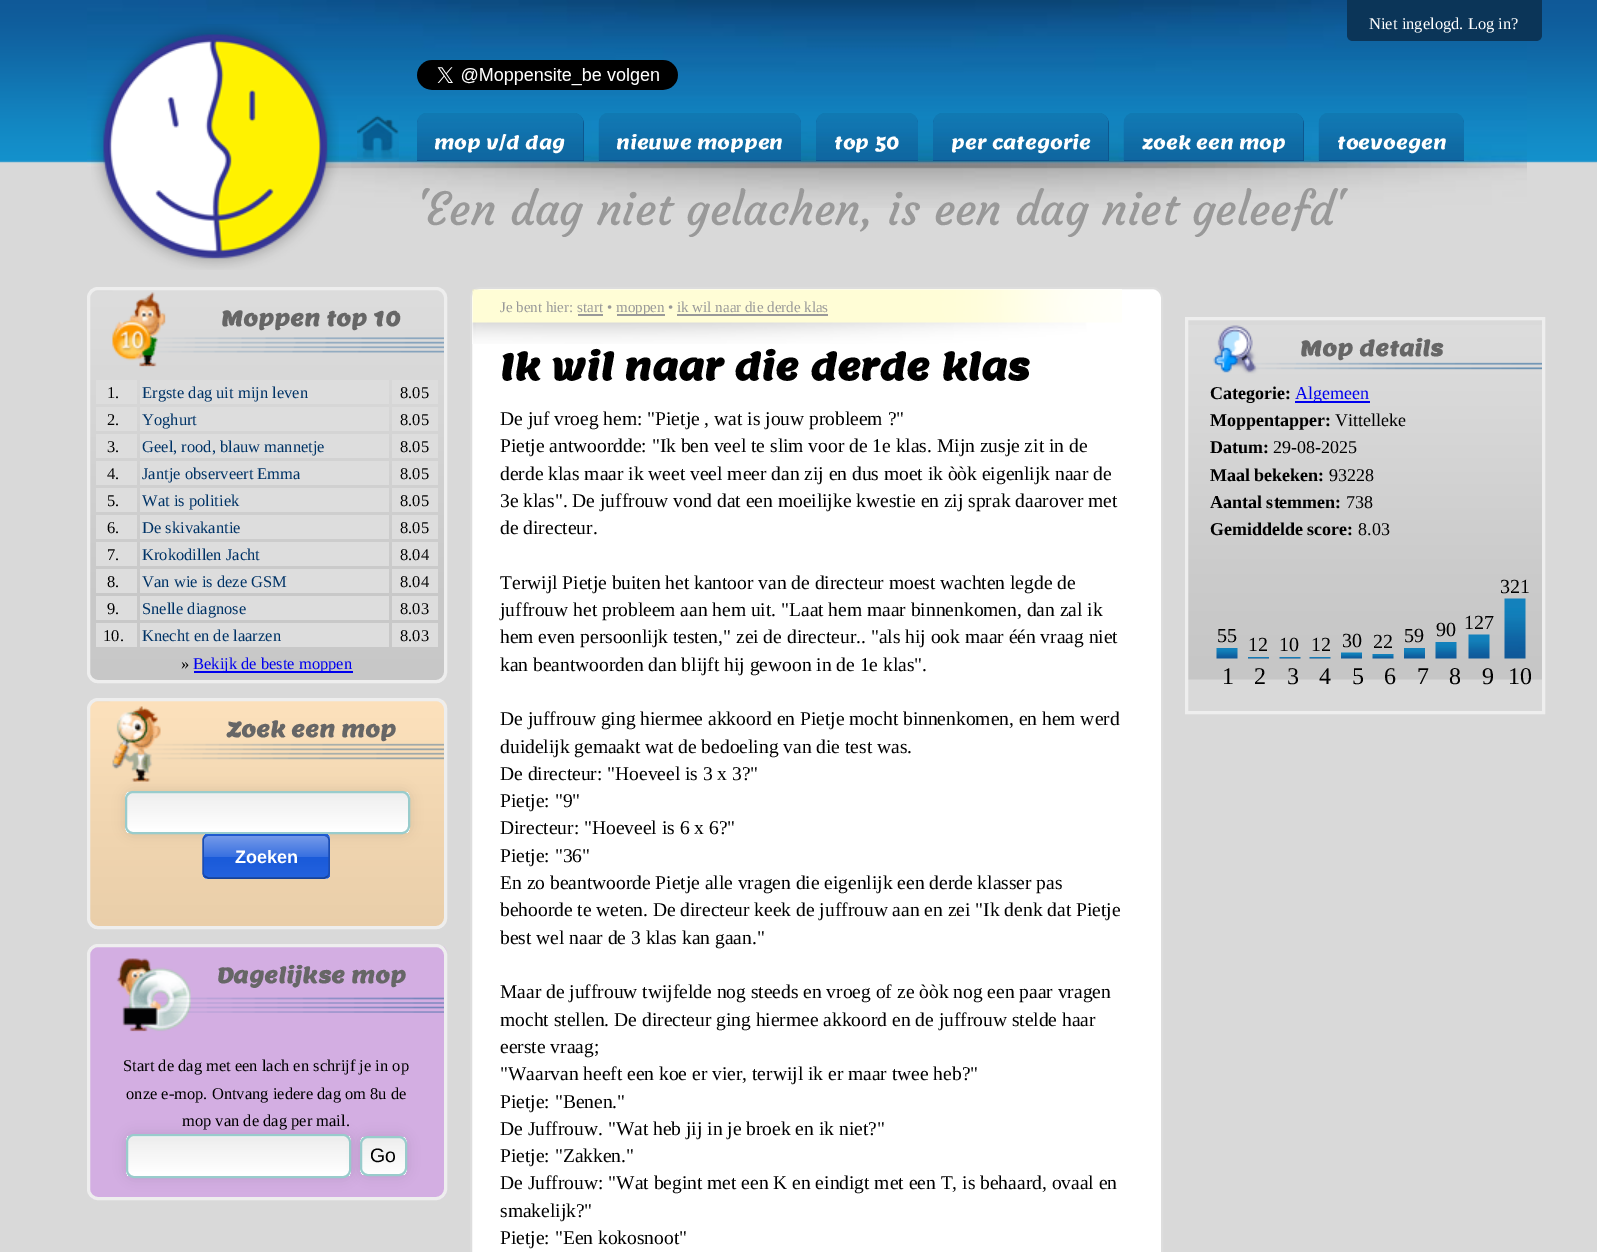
%!PS-Adobe-3.0
%%BoundingBox: 0 0 1597 1252
%%LanguageLevel: 3
%%Pages: 1
%%EndComments
%%BeginProlog
/setink { 3 { 255 div 3 1 roll } repeat setrgbcolor } def
/usefont { [ exch dup neg 0 0 3 -1 roll 0 0 ] selectfont } def
/drawtext { setink usefont moveto show } def
/fillbox { setink rectfill } def
/setalpha { dup .setfillconstantalpha .setstrokeconstantalpha } def
/rrect { 5 dict begin { /r /h /w /y /x } { exch def } forall
  x r add y moveto x w add y 2 copy h add r arct x w add y h add x 1 index r arct
  x y h add x y r arct x y 2 copy exch w add exch r arct closepath end } def
/softshadow { 12 dict begin { /a /b /q /h /w /y /x } { exch def } forall gsave /was 0 def
  9 -2 -9 { dup b mul 4 div /e exch def 1 sub .425 mul 2.718 exch exp 1 add a .99 .min exch div /now exch def
    1 1 now sub 1 was sub div sub setalpha /was now def
    w h .min e 2 mul add 0 gt { x e sub y e sub w e 2 mul add h e 2 mul add
      q e add b .6 mul add w h .min 2 div e add .min 0 .max rrect fill } if } for grestore end } def
/drawimage { 5 dict begin { /h /w /y /x /name } { exch def } forall
  gsave x y translate w h scale
  w h 8 [w 0 0 h 0 0] name (r) file false 3 colorimage grestore end } def
%%EndProlog
%%BeginSetup
<< /PageSize [1597 1252] /PageUsesTransparency true >> setpagedevice
%%EndSetup
%%Page: 1 1
0 .pushpdf14devicefilter
0 1252 translate 1 -1 scale
4 setmiterlimit
0 0 1597 1252 217 217 217 fillbox
(assets/img1.rgb) 0 0 1597 163 drawimage
(assets/img2.rgb) 87 0 1440 208 drawimage
(assets/img3.rgb) 91 24 248 246 drawimage
(assets/img4.rgb) 417 60 261 30 drawimage
11 53 88 setink
1347 0 moveto 1542 0 lineto 1542 35 lineto 1542 38.5 1539.5 41 1536 41 curveto 1353 41 lineto 1349.5 41 1347 38.5 1347 35 curveto closepath fill
(Niet ingelogd. Log in?) 1369 29 /LiberationSerif-Regular 16.5 255 255 255 drawtext
(assets/img5.rgb) 357 115 42 44 drawimage
13 78 133 setink
428 113 moveto 573 113 lineto 579 113 584 118 584 124 curveto 584 161 lineto 417 161 lineto 417 124 lineto 417 118 422 113 428 113 curveto closepath fill
(assets/img6.rgb) 417 113 167 48 drawimage
(mop v/d dag) 434 149 /Lemon-Regular 18 255 255 255 drawtext
13 78 133 setink
610 113 moveto 790 113 lineto 796 113 801 118 801 124 curveto 801 161 lineto 599 161 lineto 599 124 lineto 599 118 604 113 610 113 curveto closepath fill
(assets/img7.rgb) 598 113 203 48 drawimage
(nieuwe moppen) 616 149 /Lemon-Regular 18 255 255 255 drawtext
13 78 133 setink
827 113 moveto 907 113 lineto 913 113 918 118 918 124 curveto 918 161 lineto 816 161 lineto 816 124 lineto 816 118 821 113 827 113 curveto closepath fill
(assets/img8.rgb) 816 113 102 48 drawimage
(top 50) 834 149 /Lemon-Regular 18 255 255 255 drawtext
13 78 133 setink
944 113 moveto 1098 113 lineto 1104 113 1109 118 1109 124 curveto 1109 161 lineto 933 161 lineto 933 124 lineto 933 118 938 113 944 113 curveto closepath fill
(assets/img9.rgb) 933 113 176 48 drawimage
(per categorie) 951 149 /Lemon-Regular 18 255 255 255 drawtext
13 78 133 setink
1135 113 moveto 1293 113 lineto 1299 113 1304 118 1304 124 curveto 1304 161 lineto 1124 161 lineto 1124 124 lineto 1124 118 1129 113 1135 113 curveto closepath fill
(assets/img10.rgb) 1123 113 181 48 drawimage
(zoek een mop) 1142 149 /Lemon-Regular 18 255 255 255 drawtext
13 78 133 setink
1330 113 moveto 1453 113 lineto 1459 113 1464 118 1464 124 curveto 1464 161 lineto 1319 161 lineto 1319 124 lineto 1319 118 1324 113 1330 113 curveto closepath fill
(assets/img11.rgb) 1318 113 146 48 drawimage
(toevoegen) 1337 149 /Lemon-Regular 18 255 255 255 drawtext
('Een dag niet gelachen, is een dag niet geleefd') 416 225 /Courgette-Regular 45 153 153 153 drawtext
(assets/img12.rgb) 90 289 357 394 drawimage
238 238 238 setink
3 setlinewidth
88.5 288.5 357 393 9.5 rrect stroke
(Moppen top 10) 221 326 /Lemon-Bold 21 102 102 102 drawtext
96 380 41 24 221 221 221 fillbox
(1.) 107 398 /LiberationSerif-Regular 16.5 0 0 0 drawtext
140 380 249 24 221 221 221 fillbox
(Ergste dag uit mijn leven) 142 398 /LiberationSerif-Regular 16.5 0 51 102 drawtext
392 380 46 24 221 221 221 fillbox
(8.05) 400 398 /LiberationSerif-Regular 16.5 0 0 0 drawtext
96 407 41 24 221 221 221 fillbox
(2.) 107 425 /LiberationSerif-Regular 16.5 0 0 0 drawtext
140 407 249 24 221 221 221 fillbox
(Yoghurt) 142 425 /LiberationSerif-Regular 16.5 0 51 102 drawtext
392 407 46 24 221 221 221 fillbox
(8.05) 400 425 /LiberationSerif-Regular 16.5 0 0 0 drawtext
96 434 41 24 221 221 221 fillbox
(3.) 107 452 /LiberationSerif-Regular 16.5 0 0 0 drawtext
140 434 249 24 221 221 221 fillbox
(Geel, rood, blauw mannetje) 142 452 /LiberationSerif-Regular 16.5 0 51 102 drawtext
392 434 46 24 221 221 221 fillbox
(8.05) 400 452 /LiberationSerif-Regular 16.5 0 0 0 drawtext
96 461 41 24 221 221 221 fillbox
(4.) 107 479 /LiberationSerif-Regular 16.5 0 0 0 drawtext
140 461 249 24 221 221 221 fillbox
(Jantje observeert Emma) 142 479 /LiberationSerif-Regular 16.5 0 51 102 drawtext
392 461 46 24 221 221 221 fillbox
(8.05) 400 479 /LiberationSerif-Regular 16.5 0 0 0 drawtext
96 488 41 24 221 221 221 fillbox
(5.) 107 506 /LiberationSerif-Regular 16.5 0 0 0 drawtext
140 488 249 24 221 221 221 fillbox
(Wat is politiek) 142 506 /LiberationSerif-Regular 16.5 0 51 102 drawtext
392 488 46 24 221 221 221 fillbox
(8.05) 400 506 /LiberationSerif-Regular 16.5 0 0 0 drawtext
96 515 41 24 221 221 221 fillbox
(6.) 107 533 /LiberationSerif-Regular 16.5 0 0 0 drawtext
140 515 249 24 221 221 221 fillbox
(De skivakantie) 142 533 /LiberationSerif-Regular 16.5 0 51 102 drawtext
392 515 46 24 221 221 221 fillbox
(8.05) 400 533 /LiberationSerif-Regular 16.5 0 0 0 drawtext
96 542 41 24 221 221 221 fillbox
(7.) 107 560 /LiberationSerif-Regular 16.5 0 0 0 drawtext
140 542 249 24 221 221 221 fillbox
(Krokodillen Jacht) 142 560 /LiberationSerif-Regular 16.5 0 51 102 drawtext
392 542 46 24 221 221 221 fillbox
(8.04) 400 560 /LiberationSerif-Regular 16.5 0 0 0 drawtext
96 569 41 24 221 221 221 fillbox
(8.) 107 587 /LiberationSerif-Regular 16.5 0 0 0 drawtext
140 569 249 24 221 221 221 fillbox
(Van wie is deze GSM) 142 587 /LiberationSerif-Regular 16.5 0 51 102 drawtext
392 569 46 24 221 221 221 fillbox
(8.04) 400 587 /LiberationSerif-Regular 16.5 0 0 0 drawtext
96 596 41 24 221 221 221 fillbox
(9.) 107 614 /LiberationSerif-Regular 16.5 0 0 0 drawtext
140 596 249 24 221 221 221 fillbox
(Snelle diagnose) 142 614 /LiberationSerif-Regular 16.5 0 51 102 drawtext
392 596 46 24 221 221 221 fillbox
(8.03) 400 614 /LiberationSerif-Regular 16.5 0 0 0 drawtext
96 623 41 24 221 221 221 fillbox
(10.) 103 641 /LiberationSerif-Regular 16.5 0 0 0 drawtext
140 623 249 24 221 221 221 fillbox
(Knecht en de laarzen) 142 641 /LiberationSerif-Regular 16.5 0 51 102 drawtext
392 623 46 24 221 221 221 fillbox
(8.03) 400 641 /LiberationSerif-Regular 16.5 0 0 0 drawtext
(») 181 669 /LiberationSerif-Regular 16.5 0 0 0 drawtext
194 671 159 2 0 0 238 fillbox
(Bekijk de beste moppen) 193 669 /LiberationSerif-Regular 16.5 0 0 238 drawtext
(assets/img13.rgb) 90 700 357 229 drawimage
238 238 238 setink
88.5 699.5 357 228 9.5 rrect stroke
(Zoek een mop) 227 737 /Lemon-Bold 21 102 102 102 drawtext
0 0 0 setink
125 791 285 43 8 6 0.1 softshadow
gsave
125 791 285 43 8 rrect clip newpath
gsave 125 792 moveto 410 792 lineto 410 833 lineto 125 833 lineto closepath clip newpath
<< /ShadingType 2 /ColorSpace /DeviceRGB /Coords [126 792 126 830] /Extend [true true] /Function << /FunctionType 3 /Domain [0 1] /Functions [<< /FunctionType 2 /Domain [0 1] /C0 [1 1 1] /C1 [0.933 0.933 0.933] /N 1 >> << /FunctionType 2 /Domain [0 1] /C0 [0.933 0.933 0.933] /C1 [1 1 1] /N 1 >>] /Bounds [0.04] /Encode [0 1 0 1] >> >> shfill grestore
grestore
153 204 204 setink
2 setlinewidth
126 792 283 41 7 rrect stroke
gsave
203 834 127 45 6 rrect clip newpath
gsave 203 834 moveto 330 834 lineto 330 836 lineto 203 836 lineto closepath clip newpath
<< /ShadingType 2 /ColorSpace /DeviceRGB /Coords [266 794 266 836] /Extend [true true] /Function << /FunctionType 3 /Domain [0 1] /Functions [<< /FunctionType 2 /Domain [0 1] /C0 [0.459 0.604 0.914] /C1 [0.216 0.435 0.878] /N 1 >> << /FunctionType 2 /Domain [0 1] /C0 [0.102 0.353 0.851] /C1 [0.141 0.388 0.871] /N 1 >>] /Bounds [0.5] /Encode [0 1 0 1] >> >> shfill grestore
gsave 203 836 moveto 330 836 lineto 330 878 lineto 203 878 lineto closepath clip newpath
<< /ShadingType 2 /ColorSpace /DeviceRGB /Coords [266 836 266 878] /Extend [true true] /Function << /FunctionType 3 /Domain [0 1] /Functions [<< /FunctionType 2 /Domain [0 1] /C0 [0.459 0.604 0.914] /C1 [0.216 0.435 0.878] /N 1 >> << /FunctionType 2 /Domain [0 1] /C0 [0.102 0.353 0.851] /C1 [0.141 0.388 0.871] /N 1 >>] /Bounds [0.5] /Encode [0 1 0 1] >> >> shfill grestore
gsave 203 878 moveto 330 878 lineto 330 879 lineto 203 879 lineto closepath clip newpath
<< /ShadingType 2 /ColorSpace /DeviceRGB /Coords [266 878 266 920] /Extend [true true] /Function << /FunctionType 3 /Domain [0 1] /Functions [<< /FunctionType 2 /Domain [0 1] /C0 [0.459 0.604 0.914] /C1 [0.216 0.435 0.878] /N 1 >> << /FunctionType 2 /Domain [0 1] /C0 [0.102 0.353 0.851] /C1 [0.141 0.388 0.871] /N 1 >>] /Bounds [0.5] /Encode [0 1 0 1] >> >> shfill grestore
grestore
31 88 204 setink
1.5 setlinewidth
205 836.5 moveto 208 835 lineto 324.5 835 lineto 327.5 836.5 lineto stroke
27 77 179 setink
327.5 836.5 moveto 328.5 837.5 329 838.5 329 840 curveto 329 873 lineto 329 874.5 328.5 875.5 327.5 876.5 curveto stroke
23 66 153 setink
327.5 876.5 moveto 324.5 878 lineto 208 878 lineto 205 876.5 lineto stroke
27 77 179 setink
205 876.5 moveto 204 875.5 203 874.5 203 873 curveto 203 840 lineto 203 838.5 204 837.5 205 836.5 curveto stroke
(Zoeken) 235 863 /LiberationSans-Bold 18 255 255 255 drawtext
(assets/img14.rgb) 90 946 357 254 drawimage
238 238 238 setink
3 setlinewidth
88.5 945.5 357 253 9.5 rrect stroke
(Dagelijkse mop) 217 983 /Lemon-Bold 21 102 102 102 drawtext
(Start de dag met een lach en schrijf je in op) 123 1071 /LiberationSerif-Regular 16.5 0 0 0 drawtext
(onze e-mop. Ontvang iedere dag om 8u de) 126 1099 /LiberationSerif-Regular 16.5 0 0 0 drawtext
(mop van de dag per mail.) 182 1126 /LiberationSerif-Regular 16.5 0 0 0 drawtext
126 1134 225 44 8 6 0.1 softshadow
gsave
126 1134 225 44 8 rrect clip newpath
gsave 126 1136 moveto 351 1136 lineto 351 1176 lineto 126 1176 lineto closepath clip newpath
<< /ShadingType 2 /ColorSpace /DeviceRGB /Coords [128 1136 128 1173] /Extend [true true] /Function << /FunctionType 3 /Domain [0 1] /Functions [<< /FunctionType 2 /Domain [0 1] /C0 [1 1 1] /C1 [0.933 0.933 0.933] /N 1 >> << /FunctionType 2 /Domain [0 1] /C0 [0.933 0.933 0.933] /C1 [1 1 1] /N 1 >>] /Bounds [0.04] /Encode [0 1 0 1] >> >> shfill grestore
grestore
153 204 204 setink
2 setlinewidth
127 1135 223 42 7 rrect stroke
0 0 0 setink
360 1136 47 40 8 6 0.1 softshadow
gsave
360 1136 47 40 8 rrect clip newpath
gsave 360 1137 moveto 407 1137 lineto 407 1175 lineto 360 1175 lineto closepath clip newpath
<< /ShadingType 2 /ColorSpace /DeviceRGB /Coords [362 1137 362 1175] /Extend [true true] /Function << /FunctionType 3 /Domain [0 1] /Functions [<< /FunctionType 2 /Domain [0 1] /C0 [1 1 1] /C1 [0.933 0.933 0.933] /N 1 >> << /FunctionType 2 /Domain [0 1] /C0 [0.933 0.933 0.933] /C1 [1 1 1] /N 1 >>] /Bounds [0.04] /Encode [0 1 0 1] >> >> shfill grestore
grestore
153 204 204 setink
361 1137 45 38 7 rrect stroke
(Go) 370 1162 /LiberationSans-Regular 19.5 0 0 0 drawtext
255 255 255 setink
471 288 691 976 10 rrect gsave fill grestore
221 221 221 setink
stroke
(assets/img15.rgb) 472 289 650 55 drawimage
(Je bent hier: start •) 500 312 /LiberationSerif-Regular 15 153 153 153 drawtext
617 314 48 2 153 153 153 fillbox
(moppen • ik wil naar die derde klas) 616 312 /LiberationSerif-Regular 15 153 153 153 drawtext
578 314 25 2 153 153 153 fillbox
677 314 151 2 153 153 153 fillbox
(Ik wil naar die derde klas) 500 380 /Lemon-Bold 36 0 0 0 drawtext
(De juf vroeg hem: "Pietje , wat is jouw probleem ?") 500 425 /LiberationSerif-Regular 19.5 0 0 0 drawtext
(Pietje antwoordde: "Ik ben veel te slim voor de 1e klas. Mijn zusje zit in de) 500 452 /LiberationSerif-Regular 19.5 0 0 0 drawtext
(derde klas maar ik weet veel meer dan zij en dus moet ik òòk eigenlijk naar de) 500 480 /LiberationSerif-Regular 19.5 0 0 0 drawtext
(3e klas". De juffrouw vond dat een moeilijke kwestie en zij sprak daarover met) 500 507 /LiberationSerif-Regular 19.5 0 0 0 drawtext
(de directeur.) 500 534 /LiberationSerif-Regular 19.5 0 0 0 drawtext
(Terwijl Pietje buiten het kantoor van de directeur moest wachten legde de) 500 589 /LiberationSerif-Regular 19.5 0 0 0 drawtext
(juffrouw het probleem aan hem uit. "Laat hem maar binnenkomen, dan zal ik) 500 616 /LiberationSerif-Regular 19.5 0 0 0 drawtext
(hem even persoonlijk testen," zei de directeur.. "als hij ook maar één vraag niet) 500 643 /LiberationSerif-Regular 19.5 0 0 0 drawtext
(kan beantwoorden dan blijft hij gewoon in de 1e klas".) 500 671 /LiberationSerif-Regular 19.5 0 0 0 drawtext
(De juffrouw ging hiermee akkoord en Pietje mocht binnenkomen, en hem werd) 500 725 /LiberationSerif-Regular 19.5 0 0 0 drawtext
(duidelijk gemaakt wat de bedoeling van die test was.) 500 753 /LiberationSerif-Regular 19.5 0 0 0 drawtext
(De directeur: "Hoeveel is 3 x 3?") 500 780 /LiberationSerif-Regular 19.5 0 0 0 drawtext
(Pietje: "9") 500 807 /LiberationSerif-Regular 19.5 0 0 0 drawtext
(Directeur: "Hoeveel is 6 x 6?") 500 834 /LiberationSerif-Regular 19.5 0 0 0 drawtext
(Pietje: "36") 500 862 /LiberationSerif-Regular 19.5 0 0 0 drawtext
(En zo beantwoorde Pietje alle vragen die eigenlijk een derde klasser pas) 500 889 /LiberationSerif-Regular 19.5 0 0 0 drawtext
(behoorde te weten. De directeur keek de juffrouw aan en zei "Ik denk dat Pietje) 500 916 /LiberationSerif-Regular 19.5 0 0 0 drawtext
(best wel naar de 3 klas kan gaan.") 500 944 /LiberationSerif-Regular 19.5 0 0 0 drawtext
(Maar de juffrouw twijfelde nog steeds en vroeg of ze òòk nog een paar vragen) 500 998 /LiberationSerif-Regular 19.5 0 0 0 drawtext
(mocht stellen. De directeur ging hiermee akkoord en de juffrouw stelde haar) 500 1026 /LiberationSerif-Regular 19.5 0 0 0 drawtext
(eerste vraag;) 500 1053 /LiberationSerif-Regular 19.5 0 0 0 drawtext
("Waarvan heeft een koe er vier, terwijl ik er maar twee heb?") 500 1080 /LiberationSerif-Regular 19.5 0 0 0 drawtext
(Pietje: "Benen.") 500 1108 /LiberationSerif-Regular 19.5 0 0 0 drawtext
(De Juffrouw. "Wat heb jij in je broek en ik niet?") 500 1135 /LiberationSerif-Regular 19.5 0 0 0 drawtext
(Pietje: "Zakken.") 500 1162 /LiberationSerif-Regular 19.5 0 0 0 drawtext
(De Juffrouw: "Wat begint met een K en eindigt met een T, is behaard, ovaal en) 500 1189 /LiberationSerif-Regular 19.5 0 0 0 drawtext
(smakelijk?") 500 1217 /LiberationSerif-Regular 19.5 0 0 0 drawtext
(Pietje: "Een kokosnoot") 500 1244 /LiberationSerif-Regular 19.5 0 0 0 drawtext
(assets/img16.rgb) 1188 325 354 355 drawimage
238 238 238 setink
3 setlinewidth
1186.5 318.5 357 394 rectstroke
(Mop details) 1300 356 /Lemon-Bold 21 102 102 102 drawtext
(Categorie:) 1210 399 /LiberationSerif-Bold 18 0 0 0 drawtext
1295 401 75 2 0 0 238 fillbox
(Algemeen) 1295 399 /LiberationSerif-Regular 18 0 0 238 drawtext
(Moppentapper:) 1210 426 /LiberationSerif-Bold 18 0 0 0 drawtext
(Vittelleke) 1335 426 /LiberationSerif-Regular 18 0 0 0 drawtext
(Datum:) 1210 453 /LiberationSerif-Bold 18 0 0 0 drawtext
(29-08-2025) 1273 453 /LiberationSerif-Regular 18 0 0 0 drawtext
(Maal bekeken:) 1210 481 /LiberationSerif-Bold 18 0 0 0 drawtext
(93228) 1329 481 /LiberationSerif-Regular 18 0 0 0 drawtext
(Aantal stemmen:) 1210 508 /LiberationSerif-Bold 18 0 0 0 drawtext
(738) 1346 508 /LiberationSerif-Regular 18 0 0 0 drawtext
(Gemiddelde score:) 1210 535 /LiberationSerif-Bold 18 0 0 0 drawtext
(8.03) 1358 535 /LiberationSerif-Regular 18 0 0 0 drawtext
(321) 1500 593 /LiberationSerif-Regular 20 0 0 0 drawtext
(assets/img17.rgb) 1504 598 22 61 drawimage
(55) 1217 642 /LiberationSerif-Regular 20 0 0 0 drawtext
(assets/img18.rgb) 1216 648 22 11 drawimage
(12) 1248 651 /LiberationSerif-Regular 20 0 0 0 drawtext
(assets/img19.rgb) 1248 657 21 2 drawimage
(10) 1279 651 /LiberationSerif-Regular 20 0 0 0 drawtext
(assets/img20.rgb) 1279 657 22 2 drawimage
(12) 1311 651 /LiberationSerif-Regular 20 0 0 0 drawtext
(assets/img20.rgb) 1309 657 22 2 drawimage
(30) 1342 647 /LiberationSerif-Regular 20 0 0 0 drawtext
(assets/img21.rgb) 1341 652 21 7 drawimage
(22) 1373 648 /LiberationSerif-Regular 20 0 0 0 drawtext
(assets/img22.rgb) 1372 654 22 5 drawimage
(59) 1404 642 /LiberationSerif-Regular 20 0 0 0 drawtext
(assets/img23.rgb) 1404 648 21 11 drawimage
(90) 1436 636 /LiberationSerif-Regular 20 0 0 0 drawtext
(assets/img24.rgb) 1435 642 22 17 drawimage
(127) 1464 629 /LiberationSerif-Regular 20 0 0 0 drawtext
(assets/img25.rgb) 1468 634 22 25 drawimage
(1) 1222 684 /LiberationSerif-Regular 24 0 0 0 drawtext
(2) 1254 684 /LiberationSerif-Regular 24 0 0 0 drawtext
(3) 1287 684 /LiberationSerif-Regular 24 0 0 0 drawtext
(4) 1319 684 /LiberationSerif-Regular 24 0 0 0 drawtext
(5) 1352 684 /LiberationSerif-Regular 24 0 0 0 drawtext
(6) 1384 684 /LiberationSerif-Regular 24 0 0 0 drawtext
(7) 1417 684 /LiberationSerif-Regular 24 0 0 0 drawtext
(8) 1449 684 /LiberationSerif-Regular 24 0 0 0 drawtext
(9) 1482 684 /LiberationSerif-Regular 24 0 0 0 drawtext
(10) 1508 684 /LiberationSerif-Regular 24 0 0 0 drawtext
.poppdf14devicefilter showpage
%%EOF
